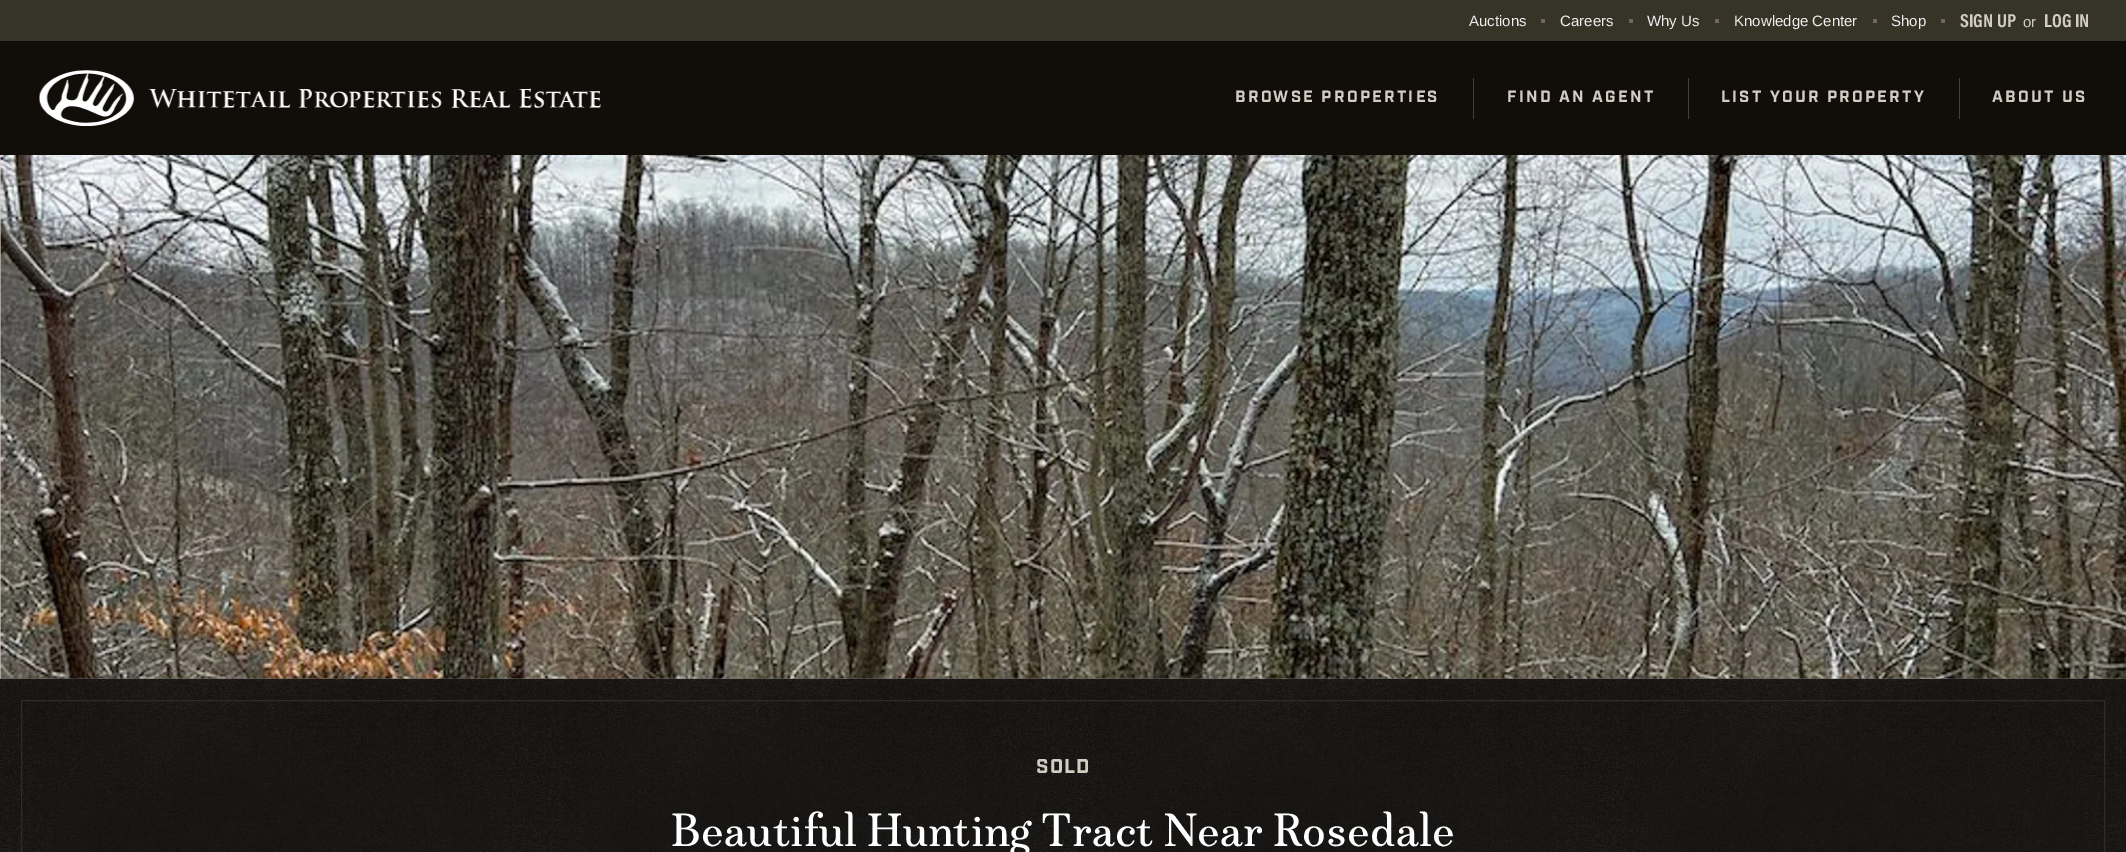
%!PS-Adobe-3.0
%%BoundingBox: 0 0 2126 852
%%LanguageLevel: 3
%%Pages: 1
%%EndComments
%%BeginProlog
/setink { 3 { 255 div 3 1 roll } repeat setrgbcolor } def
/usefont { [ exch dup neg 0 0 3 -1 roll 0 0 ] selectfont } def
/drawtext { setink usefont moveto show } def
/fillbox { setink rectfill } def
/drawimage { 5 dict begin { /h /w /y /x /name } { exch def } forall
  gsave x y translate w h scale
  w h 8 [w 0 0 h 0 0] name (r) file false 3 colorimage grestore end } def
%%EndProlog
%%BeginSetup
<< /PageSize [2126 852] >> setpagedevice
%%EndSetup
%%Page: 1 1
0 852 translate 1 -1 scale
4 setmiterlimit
0 0 2126 852 211 204 194 fillbox
0 0 2126 41 54 52 39 fillbox
(Auctions) 1469 26 /LiberationSans-Regular 15 238 238 238 drawtext
1541 19 4 4 114 104 90 fillbox
(Careers) 1560 26 /LiberationSans-Regular 15 238 238 238 drawtext
1629 19 4 4 114 104 90 fillbox
(Why Us) 1647 26 /LiberationSans-Regular 15 238 238 238 drawtext
1715 19 4 4 114 104 90 fillbox
(Knowledge Center) 1734 26 /LiberationSans-Regular 15 238 238 238 drawtext
1873 19 4 4 114 104 90 fillbox
(Shop) 1891 26 /LiberationSans-Regular 15 238 238 238 drawtext
1941 19 4 4 114 104 90 fillbox
(SIGN UP) 1960 27 /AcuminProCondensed-Bold 19 211 204 194 drawtext
(or) 2023 27 /LiberationSans-Regular 15 211 204 194 drawtext
(LOG IN) 2044 27 /AcuminProCondensed-Bold 19 211 204 194 drawtext
0 41 2126 114 17 14 10 fillbox
(assets/img1.rgb) 39 70 562 56 drawimage
1473 78 1 41 65 62 59 fillbox
/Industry-Bold 16.25 usefont
211 204 194 setink
1235 102 moveto 2.25 0 (BROWSE PROPERTIES) ashow
1688 78 1 41 65 62 59 fillbox
211 204 194 setink
1507 102 moveto 2.25 0 (FIND AN AGENT) ashow
1959 78 1 41 65 62 59 fillbox
211 204 194 setink
1721 102 moveto 2.25 0 (LIST YOUR PROPERTY) ashow
1992 102 moveto 2.25 0 (ABOUT US) ashow
(assets/img2.rgb) 0 155 2126 524 drawimage
(assets/img3.rgb) 0 678 2126 174 drawimage
46 44 41 setink
21.5 700.5 2083 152 rectstroke
/Industry-Bold 20 usefont
211 204 194 setink
1036 773 moveto 1 0 (SOLD) ashow
(Beautiful Hunting Tract Near Rosedale) 671 846 /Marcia-Regular 46.25 255 255 255 drawtext
showpage
%%EOF
